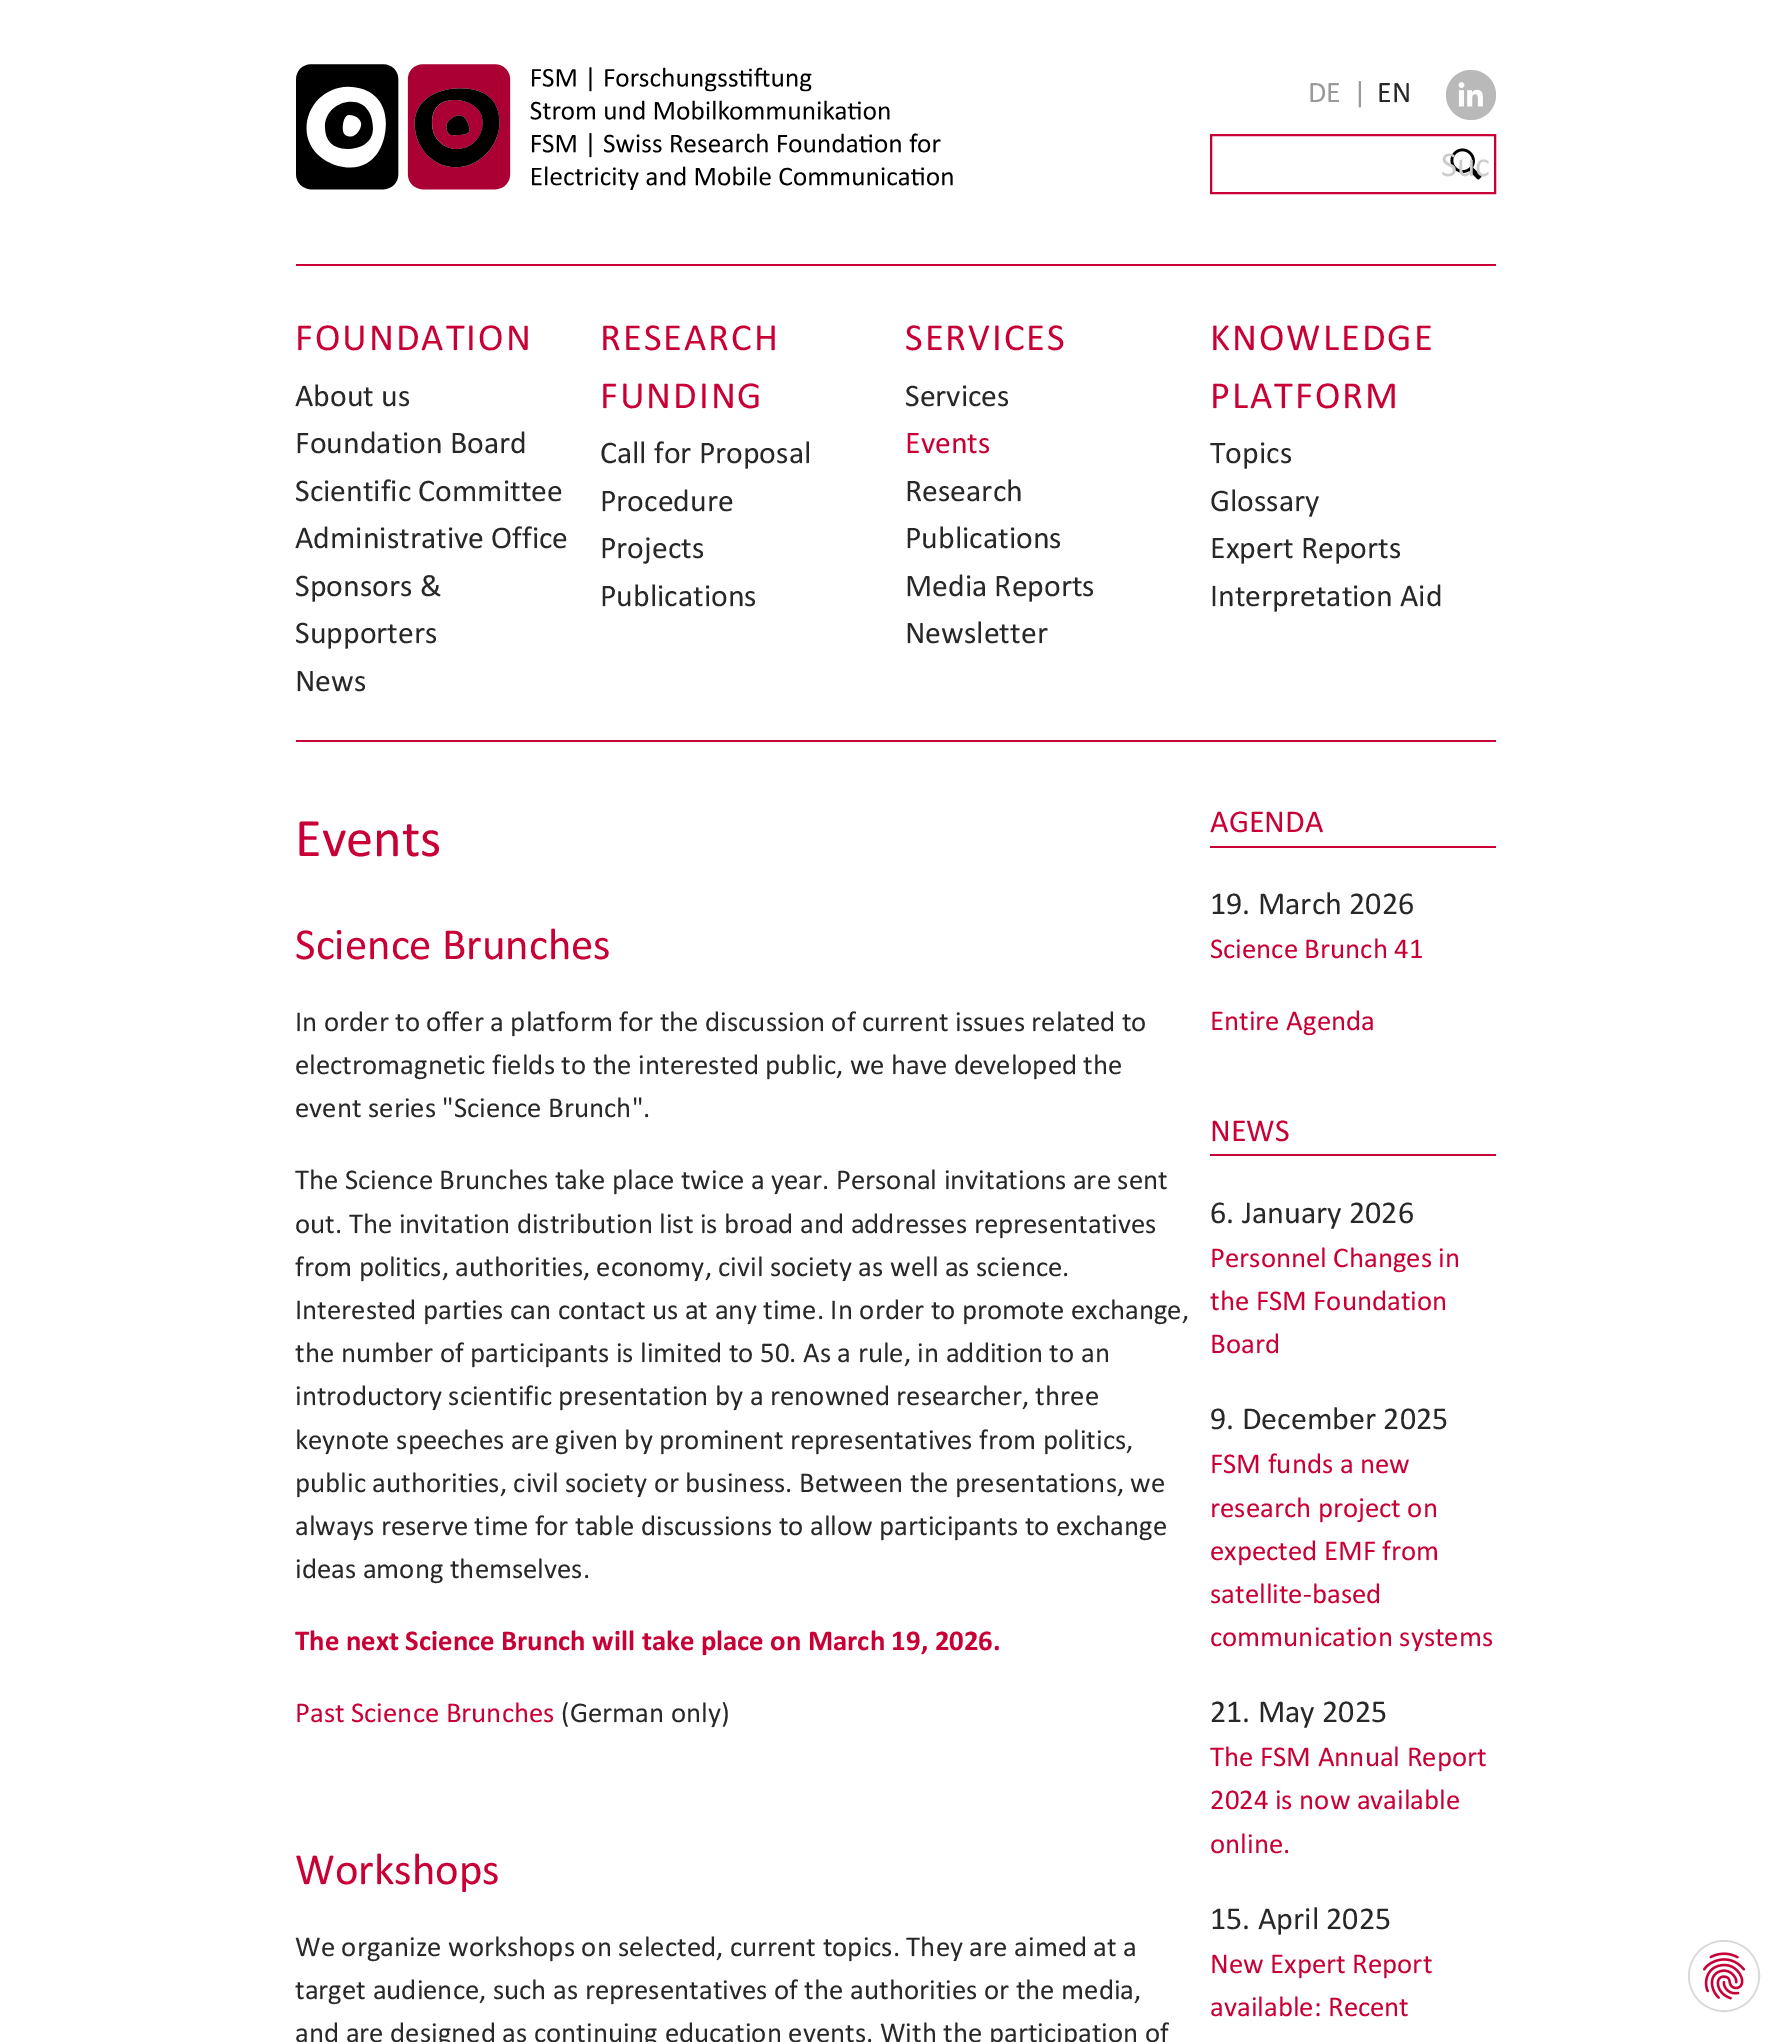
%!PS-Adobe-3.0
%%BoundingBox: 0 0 1790 2042
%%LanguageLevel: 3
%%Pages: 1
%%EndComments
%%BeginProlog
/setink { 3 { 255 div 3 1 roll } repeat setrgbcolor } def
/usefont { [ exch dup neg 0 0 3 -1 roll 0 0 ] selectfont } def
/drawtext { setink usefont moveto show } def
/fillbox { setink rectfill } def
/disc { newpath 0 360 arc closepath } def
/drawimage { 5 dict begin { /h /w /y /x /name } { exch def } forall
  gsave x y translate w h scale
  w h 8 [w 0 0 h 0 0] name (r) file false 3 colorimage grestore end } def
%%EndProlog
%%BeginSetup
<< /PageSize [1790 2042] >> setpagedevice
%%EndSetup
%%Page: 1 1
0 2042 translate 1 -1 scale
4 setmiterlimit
0 0 1790 2042 255 255 255 fillbox
296 264 1200 2 201 0 53 fillbox
(assets/img1.rgb) 296 64 657 126 drawimage
(DE) 1308 102 /Calibri-Regular 30 153 153 153 drawtext
(|) 1353 102 /Calibri-Regular 30 153 153 153 drawtext
(EN) 1377 102 /Calibri-Regular 30 40 40 40 drawtext
185 185 185 setink
1471 95 25 disc fill
(assets/img2.rgb) 1458 82 25 25 drawimage
201 0 53 setink
2 setlinewidth
1211 135 284 58 rectstroke
(assets/img3.rgb) 1450 148 32 32 drawimage
(Suc) 1441 176 /Calibri-Regular 35 204 204 204 drawtext
296 740 1200 2 201 0 53 fillbox
/Calibri-Regular 38.5 usefont
295 350 moveto 2 0 (FOUNDATION) ashow
(About us) 295 406 /Calibri-Regular 31.75 40 40 40 drawtext
(Foundation Board) 295 453 /Calibri-Regular 31.75 40 40 40 drawtext
(Scientific Committee) 295 501 /Calibri-Regular 31.75 40 40 40 drawtext
(Administrative Office) 295 548 /Calibri-Regular 31.75 40 40 40 drawtext
(Sponsors &) 295 596 /Calibri-Regular 31.75 40 40 40 drawtext
(Supporters) 295 643 /Calibri-Regular 31.75 40 40 40 drawtext
(News) 295 691 /Calibri-Regular 31.75 40 40 40 drawtext
/Calibri-Regular 38.5 usefont
201 0 53 setink
600 350 moveto 2 0 (RESEARCH) ashow
600 408 moveto 2 0 (FUNDING) ashow
(Call for Proposal) 600 463 /Calibri-Regular 31.75 40 40 40 drawtext
(Procedure) 600 511 /Calibri-Regular 31.75 40 40 40 drawtext
(Projects) 600 558 /Calibri-Regular 31.75 40 40 40 drawtext
(Publications) 600 606 /Calibri-Regular 31.75 40 40 40 drawtext
/Calibri-Regular 38.5 usefont
201 0 53 setink
905 350 moveto 2 0 (SERVICES) ashow
(Services) 905 406 /Calibri-Regular 31.75 40 40 40 drawtext
(Events) 905 453 /Calibri-Regular 31.75 201 0 53 drawtext
(Research) 905 501 /Calibri-Regular 31.75 40 40 40 drawtext
(Publications) 905 548 /Calibri-Regular 31.75 40 40 40 drawtext
(Media Reports) 905 596 /Calibri-Regular 31.75 40 40 40 drawtext
(Newsletter) 905 643 /Calibri-Regular 31.75 40 40 40 drawtext
/Calibri-Regular 38.5 usefont
201 0 53 setink
1210 350 moveto 2 0 (KNOWLEDGE) ashow
1210 408 moveto 2 0 (PLATFORM) ashow
(Topics) 1210 463 /Calibri-Regular 31.75 40 40 40 drawtext
(Glossary) 1210 511 /Calibri-Regular 31.75 40 40 40 drawtext
(Expert Reports) 1210 558 /Calibri-Regular 31.75 40 40 40 drawtext
(Interpretation Aid) 1210 606 /Calibri-Regular 31.75 40 40 40 drawtext
(Events) 295 856 /Calibri-Regular 54.5 201 0 53 drawtext
(Science Brunches) 295 959 /Calibri-Regular 44.75 201 0 53 drawtext
(In order to offer a platform for the discussion of current issues related to) 295 1031 /Calibri-Regular 28.8 40 40 40 drawtext
(electromagnetic fields to the interested public, we have developed the) 295 1074 /Calibri-Regular 28.8 40 40 40 drawtext
(event series "Science Brunch".) 295 1117 /Calibri-Regular 28.8 40 40 40 drawtext
(The Science Brunches take place twice a year. Personal invitations are sent) 295 1189 /Calibri-Regular 28.8 40 40 40 drawtext
(out. The invitation distribution list is broad and addresses representatives) 295 1233 /Calibri-Regular 28.8 40 40 40 drawtext
(from politics, authorities, economy, civil society as well as science.) 295 1276 /Calibri-Regular 28.8 40 40 40 drawtext
(Interested parties can contact us at any time. In order to promote exchange,) 295 1319 /Calibri-Regular 28.8 40 40 40 drawtext
(the number of participants is limited to 50. As a rule, in addition to an) 295 1362 /Calibri-Regular 28.8 40 40 40 drawtext
(introductory scientific presentation by a renowned researcher, three) 295 1405 /Calibri-Regular 28.8 40 40 40 drawtext
(keynote speeches are given by prominent representatives from politics,) 295 1449 /Calibri-Regular 28.8 40 40 40 drawtext
(public authorities, civil society or business. Between the presentations, we) 295 1492 /Calibri-Regular 28.8 40 40 40 drawtext
(always reserve time for table discussions to allow participants to exchange) 295 1535 /Calibri-Regular 28.8 40 40 40 drawtext
(ideas among themselves.) 295 1578 /Calibri-Regular 28.8 40 40 40 drawtext
(The next Science Brunch will take place on March 19, 2026.) 295 1650 /Calibri-Bold 28.8 201 0 53 drawtext
(Past Science Brunches) 295 1722 /Calibri-Regular 28.8 201 0 53 drawtext
(\(German only\)) 561 1722 /Calibri-Regular 28.8 40 40 40 drawtext
(Workshops) 295 1884 /Calibri-Regular 44.75 201 0 53 drawtext
(We organize workshops on selected, current topics. They are aimed at a) 295 1956 /Calibri-Regular 28.8 40 40 40 drawtext
(target audience, such as representatives of the authorities or the media,) 295 1999 /Calibri-Regular 28.8 40 40 40 drawtext
(and are designed as continuing education events. With the participation of) 295 2042 /Calibri-Regular 28.8 40 40 40 drawtext
1210 846 286 2 201 0 53 fillbox
(AGENDA) 1210 832 /Calibri-Regular 32 201 0 53 drawtext
(19. March 2026) 1210 914 /Calibri-Regular 32 40 40 40 drawtext
(Science Brunch 41) 1210 958 /Calibri-Regular 28.8 201 0 53 drawtext
(Entire Agenda) 1210 1030 /Calibri-Regular 28.8 201 0 53 drawtext
1210 1154 286 2 201 0 53 fillbox
(NEWS) 1210 1141 /Calibri-Regular 32 201 0 53 drawtext
(6. January 2026) 1210 1223 /Calibri-Regular 32 40 40 40 drawtext
(Personnel Changes in) 1210 1267 /Calibri-Regular 28.8 201 0 53 drawtext
(the FSM Foundation) 1210 1310 /Calibri-Regular 28.8 201 0 53 drawtext
(Board) 1210 1353 /Calibri-Regular 28.8 201 0 53 drawtext
(9. December 2025) 1210 1429 /Calibri-Regular 32 40 40 40 drawtext
(FSM funds a new) 1210 1473 /Calibri-Regular 28.8 201 0 53 drawtext
(research project on) 1210 1517 /Calibri-Regular 28.8 201 0 53 drawtext
(expected EMF from) 1210 1560 /Calibri-Regular 28.8 201 0 53 drawtext
(satellite-based) 1210 1603 /Calibri-Regular 28.8 201 0 53 drawtext
(communication systems) 1210 1646 /Calibri-Regular 28.8 201 0 53 drawtext
(21. May 2025) 1210 1722 /Calibri-Regular 32 40 40 40 drawtext
(The FSM Annual Report) 1210 1766 /Calibri-Regular 28.8 201 0 53 drawtext
(2024 is now available) 1210 1809 /Calibri-Regular 28.8 201 0 53 drawtext
(online.) 1210 1853 /Calibri-Regular 28.8 201 0 53 drawtext
(15. April 2025) 1210 1929 /Calibri-Regular 32 40 40 40 drawtext
(New Expert Report) 1210 1973 /Calibri-Regular 28.8 201 0 53 drawtext
(available: Recent) 1210 2016 /Calibri-Regular 28.8 201 0 53 drawtext
217 217 217 setink
1724 1976 35 disc stroke
255 255 255 setink
1724 1976 34 disc fill
(assets/img4.rgb) 1703 1952 43 48 drawimage
showpage
%%EOF
